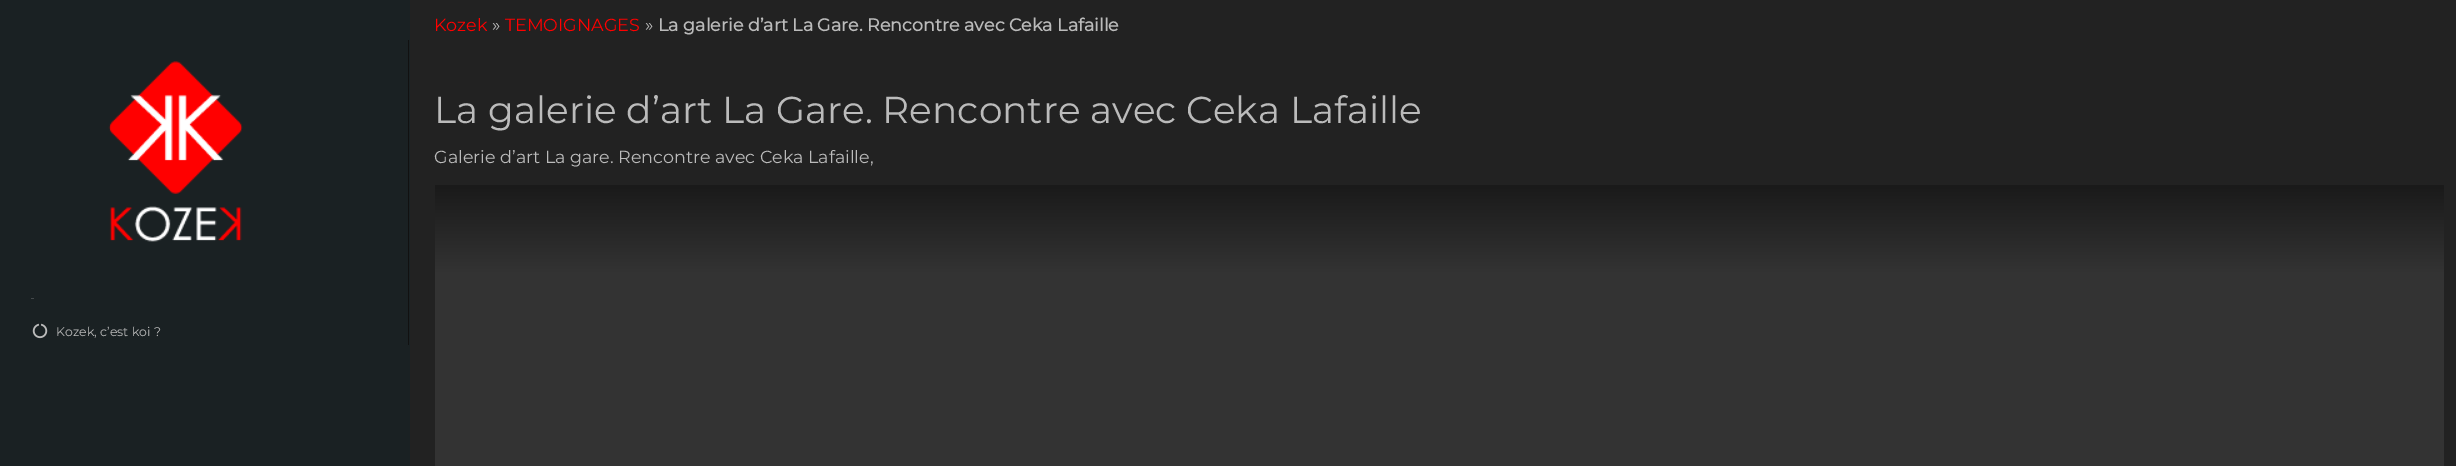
%!PS-Adobe-3.0
%%BoundingBox: 0 0 2456 466
%%LanguageLevel: 3
%%Pages: 1
%%EndComments
%%BeginProlog
/setink { 3 { 255 div 3 1 roll } repeat setrgbcolor } def
/usefont { [ exch dup neg 0 0 3 -1 roll 0 0 ] selectfont } def
/drawtext { setink usefont moveto show } def
/fillbox { setink rectfill } def
/drawimage { 5 dict begin { /h /w /y /x /name } { exch def } forall
  gsave x y translate w h scale
  w h 8 [w 0 0 h 0 0] name (r) file false 3 colorimage grestore end } def
%%EndProlog
%%BeginSetup
<< /PageSize [2456 466] >> setpagedevice
%%EndSetup
%%Page: 1 1
0 466 translate 1 -1 scale
4 setmiterlimit
0 0 2456 466 26 33 35 fillbox
410 0 2046 466 34 34 34 fillbox
(Kozek) 434 31 /Montserrat-Thin 17.5 255 0 0 drawtext
(») 492 31 /Montserrat-Thin 17.5 187 187 187 drawtext
(TEMOIGNAGES) 505 31 /Montserrat-Thin 17.5 255 0 0 drawtext
(») 645 31 /Montserrat-Thin 17.5 187 187 187 drawtext
(La galerie d’art La Gare. Rencontre avec Ceka Lafaille) 658 31 /Montserrat-Bold 17.5 187 187 187 drawtext
(La galerie d’art La Gare. Rencontre avec Ceka Lafaille) 434 123 /Montserrat-Thin 37.5 187 187 187 drawtext
(Galerie d’art La gare. Rencontre avec Ceka Lafaille,) 434 163 /Montserrat-Thin 17.5 187 187 187 drawtext
435 273 2009 193 51 51 51 fillbox
gsave 435 185 moveto 2444 185 lineto 2444 273 lineto 435 273 lineto closepath clip newpath
<< /ShadingType 2 /ColorSpace /DeviceRGB /Coords [1439 185 1439 273] /Extend [true true] /Function << /FunctionType 2 /Domain [0 1] /C0 [0.102 0.102 0.102] /C1 [0.2 0.2 0.2] /N 1 >> >> shfill grestore
408 40 1 305 17 17 17 fillbox
(assets/img1.rgb) 108 61 135 181 drawimage
(–) 31 300 /Montserrat-Thin 6 187 187 187 drawtext
(assets/img2.rgb) 32 323 16 16 drawimage
(Kozek, c’est koi ?) 56 336 /Montserrat-Thin 12.5 187 187 187 drawtext
showpage
%%EOF
